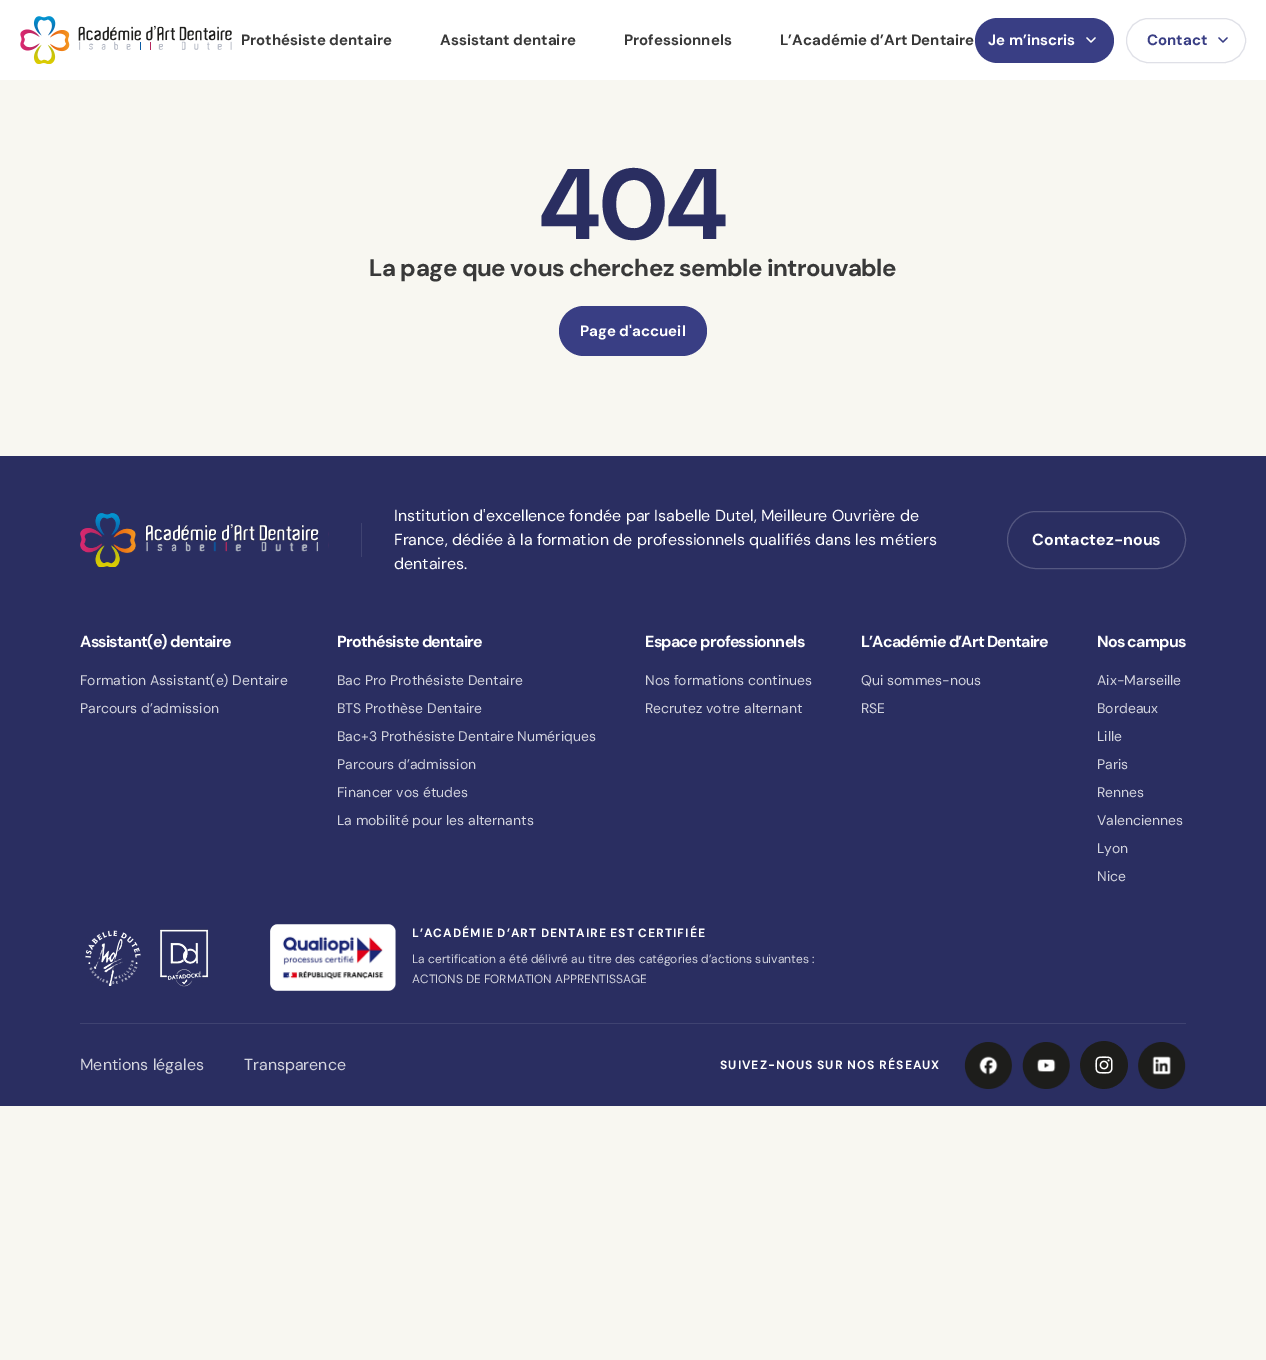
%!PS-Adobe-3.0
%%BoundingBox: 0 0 1266 1360
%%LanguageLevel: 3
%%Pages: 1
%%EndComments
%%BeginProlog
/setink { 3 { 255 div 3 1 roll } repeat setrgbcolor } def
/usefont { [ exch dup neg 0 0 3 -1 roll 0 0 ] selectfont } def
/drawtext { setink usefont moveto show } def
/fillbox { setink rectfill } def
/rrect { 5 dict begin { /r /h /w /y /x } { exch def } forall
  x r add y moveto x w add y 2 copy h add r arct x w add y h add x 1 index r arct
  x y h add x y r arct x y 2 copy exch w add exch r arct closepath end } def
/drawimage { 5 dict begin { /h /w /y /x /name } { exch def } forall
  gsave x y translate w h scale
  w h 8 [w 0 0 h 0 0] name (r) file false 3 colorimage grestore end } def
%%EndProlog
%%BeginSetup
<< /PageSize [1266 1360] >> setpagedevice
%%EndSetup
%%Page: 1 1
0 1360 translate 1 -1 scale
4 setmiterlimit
0 0 1266 1360 248 247 241 fillbox
0 0 1266 80 255 255 255 fillbox
(assets/img1.rgb) 20 16 212 48 drawimage
(Prothésiste dentaire) 241 45 /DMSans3-Bold 15 57 57 57 drawtext
(Assistant dentaire) 440 45 /DMSans3-Bold 15 57 57 57 drawtext
(Professionnels) 624 45 /DMSans3-Bold 15 57 57 57 drawtext
(L’Académie d’Art Dentaire) 780 45 /DMSans3-Bold 15 57 57 57 drawtext
57 62 132 setink
975 18 139 45 22.5 rrect fill
(Je m’inscris) 988 45 /DMSans3-Bold 15 255 255 255 drawtext
1.3 setlinewidth
1 setlinecap
1 setlinejoin
1087 38 moveto 1091 42 lineto 1095 38 lineto stroke
223 224 231 setink
1 setlinewidth
0 setlinecap
0 setlinejoin
1126.5 18.5 119 44 22 rrect stroke
(Contact) 1147 45 /DMSans3-Bold 15 57 62 132 drawtext
1.3 setlinewidth
1 setlinecap
1 setlinejoin
1219 38 moveto 1223 42 lineto 1227 38 lineto stroke
/DMSans-Bold 100 usefont
42 46 97 setink
539 239 moveto -2 0 (404) ashow
/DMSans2-Bold 24 usefont
57 57 57 setink
369 276 moveto -0.5 0 (La page que vous cherchez semble introuvable) ashow
57 62 132 setink
559 306 148 50 25 rrect fill
(Page d'accueil) 580 336 /DMSans3-Bold 15 255 255 255 drawtext
0 456 1266 650 42 46 97 fillbox
(assets/img2.rgb) 80 513 249 54 drawimage
361 523 1 34 63 67 113 fillbox
(Institution d'excellence fondée par Isabelle Dutel, Meilleure Ouvrière de) 394 521 /DMSans-Regular 16 255 255 255 drawtext
(France, dédiée à la formation de professionnels qualifiés dans les métiers) 394 545 /DMSans-Regular 16 255 255 255 drawtext
(dentaires.) 394 569 /DMSans-Regular 16 255 255 255 drawtext
85 88 129 setink
1 setlinewidth
0 setlinecap
0 setlinejoin
1007.5 511.5 178 57 28.5 rrect stroke
(Contactez-nous) 1032 545 /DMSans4-Bold 16 255 255 255 drawtext
80 647 moveto -0.8 0 (Assistant\(e\) dentaire) ashow
(Formation Assistant\(e\) Dentaire) 80 685 /DMSans2-Regular 14 212 213 223 drawtext
(Parcours d’admission) 80 713 /DMSans2-Regular 14 212 213 223 drawtext
/DMSans4-Bold 16 usefont
255 255 255 setink
337 647 moveto -0.8 0 (Prothésiste dentaire) ashow
(Bac Pro Prothésiste Dentaire) 337 685 /DMSans2-Regular 14 212 213 223 drawtext
(BTS Prothèse Dentaire) 337 713 /DMSans2-Regular 14 212 213 223 drawtext
(Bac+3 Prothésiste Dentaire Numériques) 337 741 /DMSans2-Regular 14 212 213 223 drawtext
(Parcours d’admission) 337 769 /DMSans2-Regular 14 212 213 223 drawtext
(Financer vos études) 337 797 /DMSans2-Regular 14 212 213 223 drawtext
(La mobilité pour les alternants) 337 825 /DMSans2-Regular 14 212 213 223 drawtext
/DMSans4-Bold 16 usefont
255 255 255 setink
645 647 moveto -0.8 0 (Espace professionnels) ashow
(Nos formations continues) 645 685 /DMSans2-Regular 14 212 213 223 drawtext
(Recrutez votre alternant) 645 713 /DMSans2-Regular 14 212 213 223 drawtext
/DMSans4-Bold 16 usefont
255 255 255 setink
861 647 moveto -0.8 0 (L’Académie d’Art Dentaire) ashow
(Qui sommes-nous) 861 685 /DMSans2-Regular 14 212 213 223 drawtext
(RSE) 861 713 /DMSans2-Regular 14 212 213 223 drawtext
/DMSans4-Bold 16 usefont
255 255 255 setink
1097 647 moveto -0.8 0 (Nos campus) ashow
(Aix-Marseille) 1097 685 /DMSans2-Regular 14 212 213 223 drawtext
(Bordeaux) 1097 713 /DMSans2-Regular 14 212 213 223 drawtext
(Lille) 1097 741 /DMSans2-Regular 14 212 213 223 drawtext
(Paris) 1097 769 /DMSans2-Regular 14 212 213 223 drawtext
(Rennes) 1097 797 /DMSans2-Regular 14 212 213 223 drawtext
(Valenciennes) 1097 825 /DMSans2-Regular 14 212 213 223 drawtext
(Lyon) 1097 853 /DMSans2-Regular 14 212 213 223 drawtext
(Nice) 1097 881 /DMSans2-Regular 14 212 213 223 drawtext
(assets/img3.rgb) 85 930 56 56 drawimage
(assets/img4.rgb) 160 929 49 58 drawimage
(assets/img5.rgb) 270 924 126 67 drawimage
/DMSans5-Bold 12 usefont
255 255 255 setink
412 937 moveto -0.5 0 32 1 0 (L’ACADÉMIE D’ART DENTAIRE EST CERTIFIÉE) awidthshow
(La certification a été délivré au titre des catégories d’actions suivantes :) 412 963 /DMSans3-Regular 12 212 213 223 drawtext
(ACTIONS DE FORMATION APPRENTISSAGE) 412 983 /DMSans3-Regular 12 212 213 223 drawtext
80 1023 1106 1 63 67 113 fillbox
(Mentions légales) 80 1070 /DMSans-Regular 16 212 213 223 drawtext
(Transparence) 244 1070 /DMSans-Regular 16 212 213 223 drawtext
/DMSans5-Bold 12 usefont
255 255 255 setink
720 1069 moveto 1 0 (SUIVEZ-NOUS SUR NOS RÉSEAUX) ashow
(assets/img6.rgb) 964 1042 48 47 drawimage
(assets/img7.rgb) 1022 1042 48 47 drawimage
(assets/img8.rgb) 1080 1041 48 48 drawimage
(assets/img9.rgb) 1138 1042 48 47 drawimage
showpage
%%EOF
